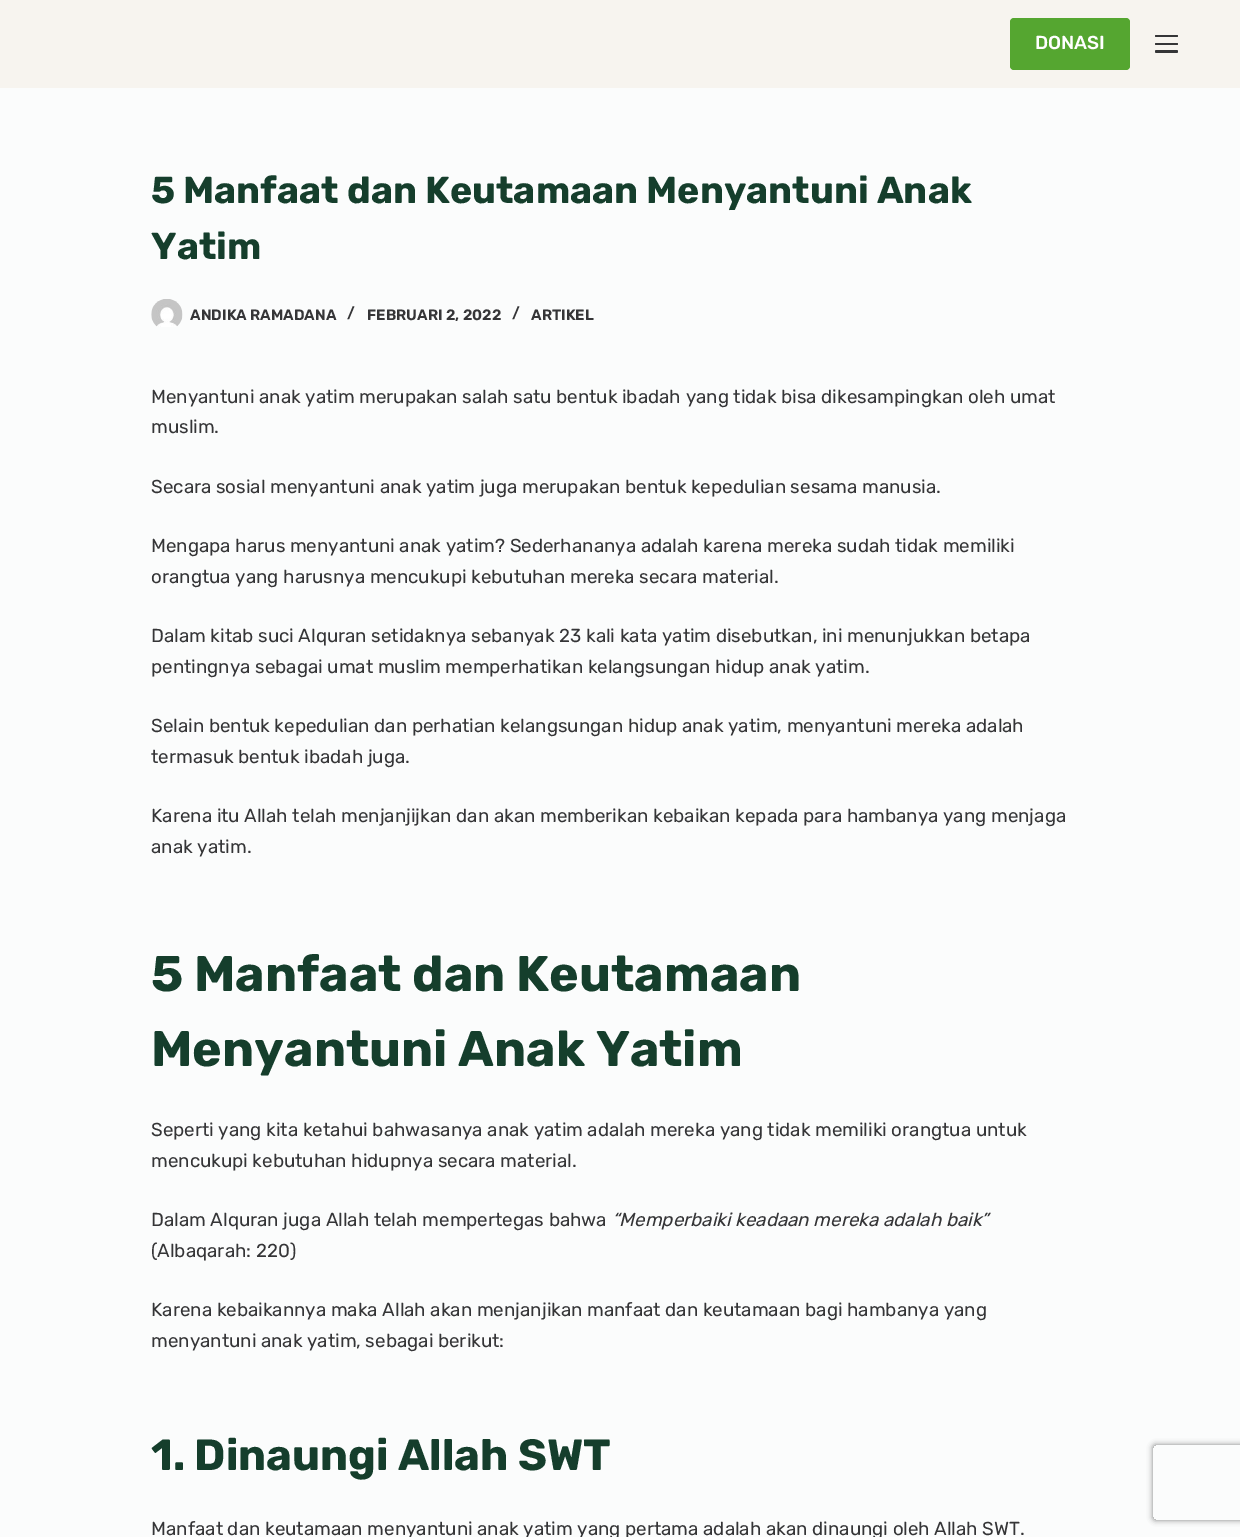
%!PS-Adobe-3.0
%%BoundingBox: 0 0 1240 1537
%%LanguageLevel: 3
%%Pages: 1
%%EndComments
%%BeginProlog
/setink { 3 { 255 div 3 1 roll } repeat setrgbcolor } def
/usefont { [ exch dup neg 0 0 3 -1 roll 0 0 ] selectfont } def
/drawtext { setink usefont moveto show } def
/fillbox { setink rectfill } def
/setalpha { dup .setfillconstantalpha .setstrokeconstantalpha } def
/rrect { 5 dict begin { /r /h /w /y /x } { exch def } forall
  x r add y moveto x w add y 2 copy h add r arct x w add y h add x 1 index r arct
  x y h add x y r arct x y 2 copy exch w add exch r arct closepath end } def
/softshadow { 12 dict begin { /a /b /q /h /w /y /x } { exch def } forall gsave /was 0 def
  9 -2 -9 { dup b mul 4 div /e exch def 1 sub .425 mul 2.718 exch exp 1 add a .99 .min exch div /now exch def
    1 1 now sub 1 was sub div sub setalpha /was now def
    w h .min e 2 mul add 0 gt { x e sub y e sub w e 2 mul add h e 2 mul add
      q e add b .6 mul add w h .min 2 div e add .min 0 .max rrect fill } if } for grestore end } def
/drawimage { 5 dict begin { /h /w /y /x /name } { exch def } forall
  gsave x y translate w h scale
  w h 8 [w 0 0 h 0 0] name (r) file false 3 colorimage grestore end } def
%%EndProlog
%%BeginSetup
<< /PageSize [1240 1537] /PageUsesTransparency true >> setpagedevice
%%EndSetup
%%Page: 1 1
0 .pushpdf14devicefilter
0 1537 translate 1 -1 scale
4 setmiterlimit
0 0 1240 1537 251 252 252 fillbox
0 0 1240 88 247 244 239 fillbox
85 166 48 setink
1010 18 120 52 4 rrect fill
(DONASI) 1035 49 /Rubik-Medium 18.75 255 255 255 drawtext
53 53 55 setink
1155 35 23 2 1 rrect fill
1155 43 23 2 1 rrect fill
1155 50 23 3 1.5 rrect fill
(5 Manfaat dan Keutamaan Menyantuni Anak) 151 203 /Rubik-Bold 37.5 21 62 44 drawtext
(Yatim) 151 259 /Rubik-Bold 37.5 21 62 44 drawtext
(assets/img1.rgb) 151 299 32 28 drawimage
(ANDIKA RAMADANA) 190 320 /Rubik-SemiBold 15 53 53 55 drawtext
(/) 347 318 /Rubik-SemiBold 15 53 53 55 drawtext
(FEBRUARI 2, 2022) 367 320 /Rubik-SemiBold 15 53 53 55 drawtext
(/) 512 318 /Rubik-SemiBold 15 53 53 55 drawtext
(ARTIKEL) 531 320 /Rubik-SemiBold 15 53 53 55 drawtext
(Menyantuni anak yatim merupakan salah satu bentuk ibadah yang tidak bisa dikesampingkan oleh umat) 151 403 /Rubik-Regular 18.75 53 53 55 drawtext
(muslim.) 151 433 /Rubik-Regular 18.75 53 53 55 drawtext
(Secara sosial menyantuni anak yatim juga merupakan bentuk kepedulian sesama manusia.) 151 493 /Rubik-Regular 18.75 53 53 55 drawtext
(Mengapa harus menyantuni anak yatim? Sederhananya adalah karena mereka sudah tidak memiliki) 151 552 /Rubik-Regular 18.75 53 53 55 drawtext
(orangtua yang harusnya mencukupi kebutuhan mereka secara material.) 151 583 /Rubik-Regular 18.75 53 53 55 drawtext
(Dalam kitab suci Alquran setidaknya sebanyak 23 kali kata yatim disebutkan, ini menunjukkan betapa) 151 642 /Rubik-Regular 18.75 53 53 55 drawtext
(pentingnya sebagai umat muslim memperhatikan kelangsungan hidup anak yatim.) 151 673 /Rubik-Regular 18.75 53 53 55 drawtext
(Selain bentuk kepedulian dan perhatian kelangsungan hidup anak yatim, menyantuni mereka adalah) 151 732 /Rubik-Regular 18.75 53 53 55 drawtext
(termasuk bentuk ibadah juga.) 151 763 /Rubik-Regular 18.75 53 53 55 drawtext
(Karena itu Allah telah menjanjijkan dan akan memberikan kebaikan kepada para hambanya yang menjaga) 151 822 /Rubik-Regular 18.75 53 53 55 drawtext
(anak yatim.) 151 853 /Rubik-Regular 18.75 53 53 55 drawtext
(5 Manfaat dan Keutamaan) 151 991 /Rubik-Bold 50 21 62 44 drawtext
(Menyantuni Anak Yatim) 151 1066 /Rubik-Bold 50 21 62 44 drawtext
(Seperti yang kita ketahui bahwasanya anak yatim adalah mereka yang tidak memiliki orangtua untuk) 151 1136 /Rubik-Regular 18.75 53 53 55 drawtext
(mencukupi kebutuhan hidupnya secara material.) 151 1167 /Rubik-Regular 18.75 53 53 55 drawtext
(Dalam Alquran juga Allah telah mempertegas bahwa) 151 1226 /Rubik-Regular 18.75 53 53 55 drawtext
(“Memperbaiki keadaan mereka adalah baik”) 612 1226 /Rubik-Italic 18.75 53 53 55 drawtext
(\(Albaqarah: 220\)) 151 1257 /Rubik-Regular 18.75 53 53 55 drawtext
(Karena kebaikannya maka Allah akan menjanjikan manfaat dan keutamaan bagi hambanya yang) 151 1316 /Rubik-Regular 18.75 53 53 55 drawtext
(menyantuni anak yatim, sebagai berikut:) 151 1347 /Rubik-Regular 18.75 53 53 55 drawtext
(1. Dinaungi Allah SWT) 151 1470 /Rubik-Bold 43.75 21 62 44 drawtext
(Manfaat dan keutamaan menyantuni anak yatim yang pertama adalah akan dinaungi oleh Allah SWT.) 151 1535 /Rubik-Regular 18.75 53 53 55 drawtext
gsave
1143 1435 moveto 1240 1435 lineto 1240 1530 lineto 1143 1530 lineto closepath 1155.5 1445 moveto 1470.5 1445 lineto 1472 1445 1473 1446 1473 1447.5 curveto 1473 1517.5 lineto 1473 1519 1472 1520 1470.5 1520 curveto 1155.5 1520 lineto 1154 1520 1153 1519 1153 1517.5 curveto 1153 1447.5 lineto 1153 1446 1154 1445 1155.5 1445 curveto closepath eoclip newpath
128 128 128 setink
1153 1445 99 75 2.5 3 1 softshadow
grestore
.poppdf14devicefilter showpage
%%EOF
